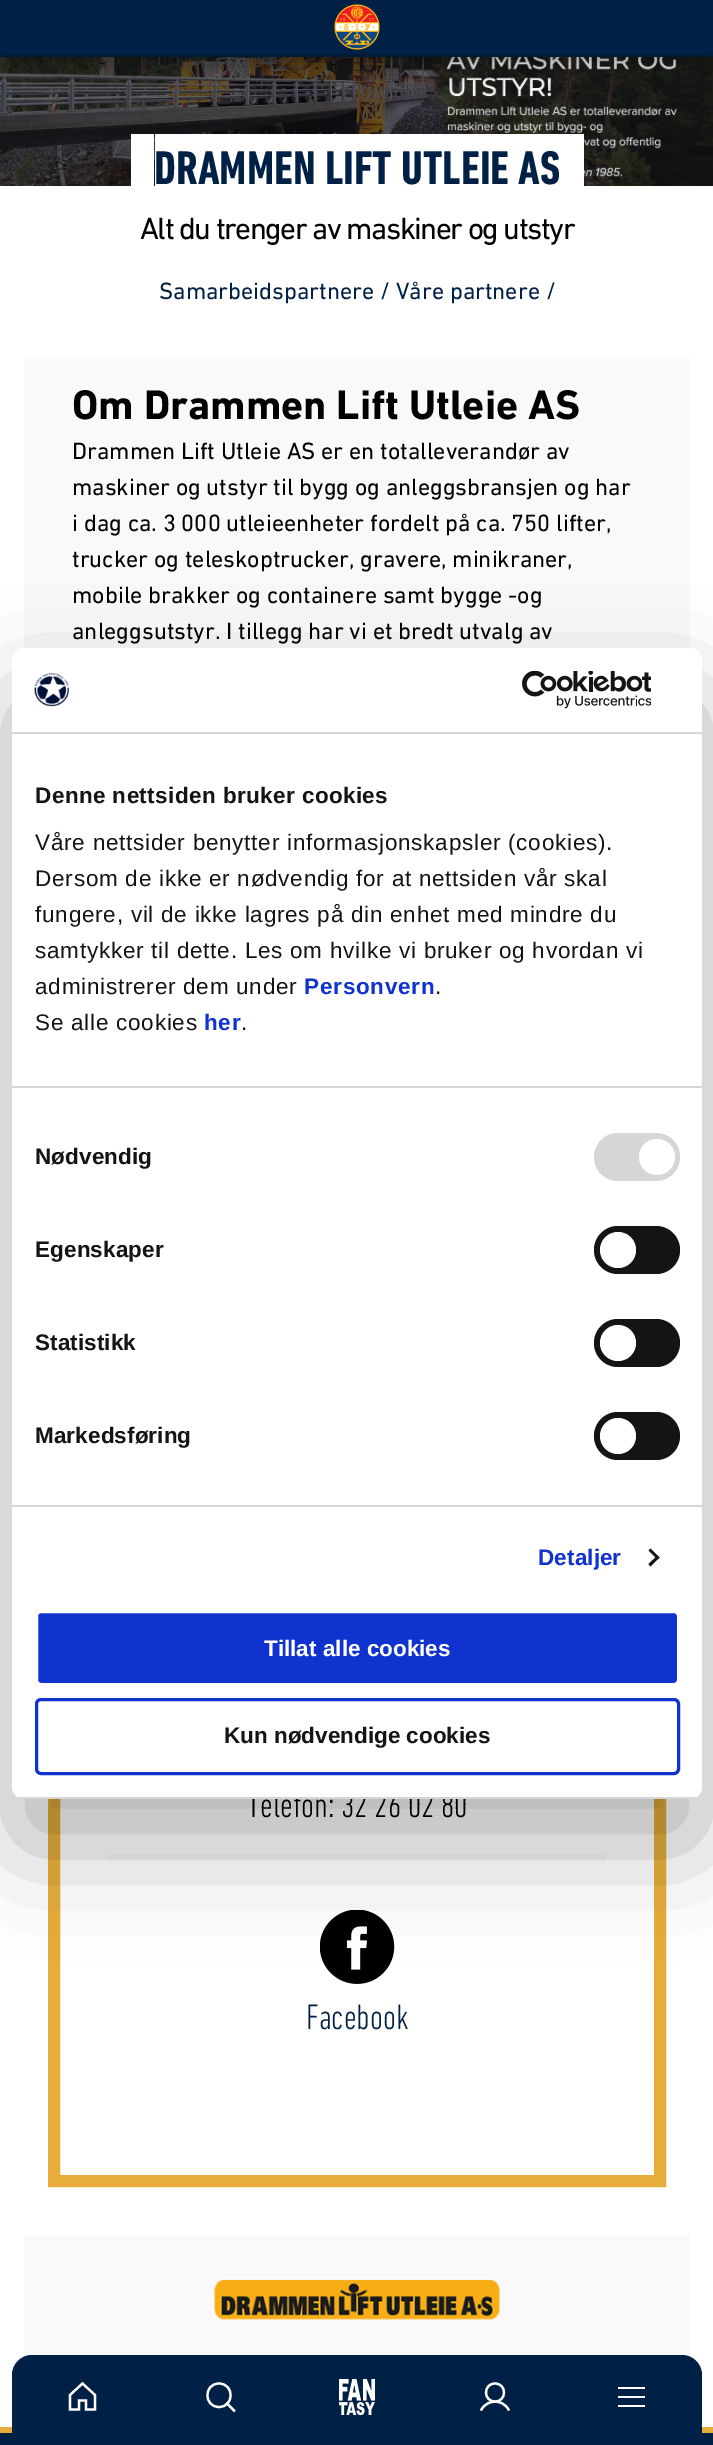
%!PS-Adobe-3.0
%%BoundingBox: 0 0 713 2445
%%LanguageLevel: 3
%%Pages: 1
%%EndComments
%%BeginProlog
/setink { 3 { 255 div 3 1 roll } repeat setrgbcolor } def
/usefont { [ exch dup neg 0 0 3 -1 roll 0 0 ] selectfont } def
/drawtext { setink usefont moveto show } def
/fillbox { setink rectfill } def
/setalpha { dup .setfillconstantalpha .setstrokeconstantalpha } def
/disc { newpath 0 360 arc closepath } def
/rrect { 5 dict begin { /r /h /w /y /x } { exch def } forall
  x r add y moveto x w add y 2 copy h add r arct x w add y h add x 1 index r arct
  x y h add x y r arct x y 2 copy exch w add exch r arct closepath end } def
/softshadow { 12 dict begin { /a /b /q /h /w /y /x } { exch def } forall gsave /was 0 def
  9 -2 -9 { dup b mul 4 div /e exch def 1 sub .425 mul 2.718 exch exp 1 add a .99 .min exch div /now exch def
    1 1 now sub 1 was sub div sub setalpha /was now def
    w h .min e 2 mul add 0 gt { x e sub y e sub w e 2 mul add h e 2 mul add
      q e add b .6 mul add w h .min 2 div e add .min 0 .max rrect fill } if } for grestore end } def
/drawimage { 5 dict begin { /h /w /y /x /name } { exch def } forall
  gsave x y translate w h scale
  w h 8 [w 0 0 h 0 0] name (r) file false 3 colorimage grestore end } def
%%EndProlog
%%BeginSetup
<< /PageSize [713 2445] /PageUsesTransparency true >> setpagedevice
%%EndSetup
%%Page: 1 1
0 .pushpdf14devicefilter
0 2445 translate 1 -1 scale
4 setmiterlimit
0 0 713 2445 255 255 255 fillbox
(assets/img2.rgb) 0 57 713 129 drawimage
0 0 0 setink
0 -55 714 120 0 21 0.3 softshadow
0 54 713 3 0 33 69 fillbox
0 0 0 setink
0 6 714 54 0 10.5 0.25 softshadow
0 0 713 54 0 33 69 fillbox
(assets/img1.rgb) 334 4 46 46 drawimage
255 255 255 setink
179 190 moveto 179 191 lineto 584 191 lineto 584 134 lineto 560 134 lineto 560 190 lineto closepath fill
131 134 moveto 131 191 lineto 536 191 lineto 536 190 lineto 154 190 lineto 154 134 lineto closepath fill
155 134 405 52 255 255 255 fillbox
(DRAMMEN LIFT UTLEIE AS) 154 184 /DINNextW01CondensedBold-Bold 48 0 33 69 drawtext
/DINNext-Regular 31.25 usefont
1 1 1 setink
140 239 moveto -1.5 0 (Alt du trenger av maskiner og utstyr) ashow
(Samarbeidspartnere / Våre partnere /) 159 299 /DINNext-Regular 24 0 33 69 drawtext
24 359 666 289 249 249 249 fillbox
(Om Drammen Lift Utleie AS) 72 419 /DINNext-Bold 42 1 1 1 drawtext
(Drammen Lift Utleie AS er en totalleverandør av) 72 459 /DINNext-Regular 24 1 1 1 drawtext
(maskiner og utstyr til bygg og anleggsbransjen og har) 72 495 /DINNext-Regular 24 1 1 1 drawtext
(i dag ca. 3 000 utleieenheter fordelt på ca. 750 lifter,) 72 531 /DINNext-Regular 24 1 1 1 drawtext
(trucker og teleskoptrucker, gravere, minikraner,) 72 567 /DINNext-Regular 24 1 1 1 drawtext
(mobile brakker og containere samt bygge -og) 72 603 /DINNext-Regular 24 1 1 1 drawtext
(anleggsutstyr. I tillegg har vi et bredt utvalg av) 72 639 /DINNext-Regular 24 1 1 1 drawtext
230 173 58 setink
12 setlinewidth
54 909 606 1272 rectstroke
(Telefon: 32 26 02 80) 247 1817 /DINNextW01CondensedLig-Light 36 1 1 1 drawtext
108 1854 498 8 249 249 249 fillbox
(assets/img3.rgb) 320 1910 75 74 drawimage
(Facebook) 306 2029 /DINNextW01CondensedLig-Light 36 0 33 69 drawtext
24 2235 666 122 249 249 249 fillbox
(assets/img4.rgb) 214 2279 286 42 drawimage
0 0 0 setink
12 696 690 1151 12 51 0.3 softshadow
255 255 255 setink
12 648 690 1151 12 rrect fill
12 732 690 2 214 214 214 fillbox
(assets/img5.rgb) 34 673 35 34 drawimage
(assets/img6.rgb) 522 671 129 38 drawimage
12 1086 690 2 214 214 214 fillbox
/LiberationSans-Bold 22.5 usefont
20 20 20 setink
35 803 moveto 0.4 0 (Denne nettsiden bruker cookies) ashow
/LiberationSans-Regular 22.5 usefont
35 850 moveto 0.75 0 (Våre nettsider benytter informasjonskapsler \(cookies\).) ashow
35 886 moveto 0.75 0 (Dersom de ikke er nødvendig for at nettsiden vår skal) ashow
35 922 moveto 0.75 0 (fungere, vil de ikke lagres på din enhet med mindre du) ashow
35 958 moveto 0.75 0 (samtykker til dette. Les om hvilke vi bruker og hvordan vi) ashow
35 994 moveto 0.75 0 (administrerer dem under) ashow
/LiberationSans-Bold 22.5 usefont
16 50 207 setink
304 994 moveto 0.75 0 (Personvern) ashow
/LiberationSans-Regular 22.5 usefont
20 20 20 setink
435 994 moveto 0.75 0 (.) ashow
35 1030 moveto 0.75 0 (Se alle cookies) ashow
/LiberationSans-Bold 22.5 usefont
16 50 207 setink
204 1030 moveto 0.75 0 (her) ashow
/LiberationSans-Regular 22.5 usefont
20 20 20 setink
241 1030 moveto 0.75 0 (.) ashow
12 1505 690 2 214 214 214 fillbox
/LiberationSans-Bold 22.5 usefont
20 20 20 setink
35 1164 moveto 0.1 0 (Nødvendig) ashow
214 214 214 setink
594 1133 86 48 24 rrect fill
255 255 255 setink
657 1157 18 disc fill
20 20 20 setink
35 1257 moveto 0.1 0 (Egenskaper) ashow
594 1226 86 48 24 rrect fill
255 255 255 setink
618 1250 18 disc fill
20 20 20 setink
35 1350 moveto 0.1 0 (Statistikk) ashow
594 1319 86 48 24 rrect fill
255 255 255 setink
618 1343 18 disc fill
20 20 20 setink
35 1443 moveto 0.1 0 (Markedsføring) ashow
594 1412 86 48 24 rrect fill
255 255 255 setink
618 1436 18 disc fill
16 50 207 setink
538 1565 moveto 0.1 0 (Detaljer) ashow
20 20 20 setink
650.5 1548.5 moveto 659.5 1557.5 lineto 657.5 1559.5 lineto 648.5 1550.5 lineto closepath fill
657.5 1555.5 moveto 659.5 1557.5 lineto 650.5 1566.5 lineto 648.5 1564 lineto closepath fill
gsave
12 648 690 1151 12 rrect clip newpath
12 1797 690 2 214 214 214 fillbox
grestore
16 50 207 setink
36.5 1611.5 642 73 4.5 rrect gsave fill grestore
255 255 255 setink
3 setlinewidth
stroke
(Tillat alle cookies) 264 1656 /LiberationSans-Bold 22.5 255 255 255 drawtext
16 50 207 setink
36.5 1699.5 642 74 4.5 rrect stroke
(Kun nødvendige cookies) 224 1743 /LiberationSans-Bold 22.5 20 20 20 drawtext
0 2433 713 12 0 33 69 fillbox
0 2427 713 6 230 173 58 fillbox
0 33 69 setink
32 2355 moveto 682 2355 lineto 693 2355 702 2364 702 2375 curveto 702 2445 lineto 12 2445 lineto 12 2375 lineto 12 2364 21 2355 32 2355 curveto closepath fill
255 255 255 setink
2.2 setlinewidth
1 setlinecap
86 2400.5 moveto 79 2400.5 lineto 79 2409.5 lineto 70 2409.5 lineto 70 2395 lineto 82.5 2383.5 lineto 95 2395 lineto 95 2409.5 lineto 86 2409.5 lineto closepath stroke
1 setlinejoin
219 2407 moveto 234.5 2407 234.5 2383.5 219 2383.5 curveto 203.5 2383.5 203.5 2407 219 2407 curveto closepath stroke
2 setlinecap
227 2403.5 moveto 234 2410.5 lineto stroke
(assets/img7.rgb) 339 2379 36 36 drawimage
0 setlinecap
0 setlinejoin
495 2401.5 moveto 507 2401.5 507 2383.5 495 2383.5 curveto 483 2383.5 483 2401.5 495 2401.5 curveto closepath stroke
2 setlinecap
1 setlinejoin
481.5 2409.5 moveto 487.5 2399 502.5 2399 508.5 2409.5 curveto stroke
618 2396 27 2 255 255 255 fillbox
618 2387 27 2 255 255 255 fillbox
618 2405 27 2 255 255 255 fillbox
.poppdf14devicefilter showpage
%%EOF
